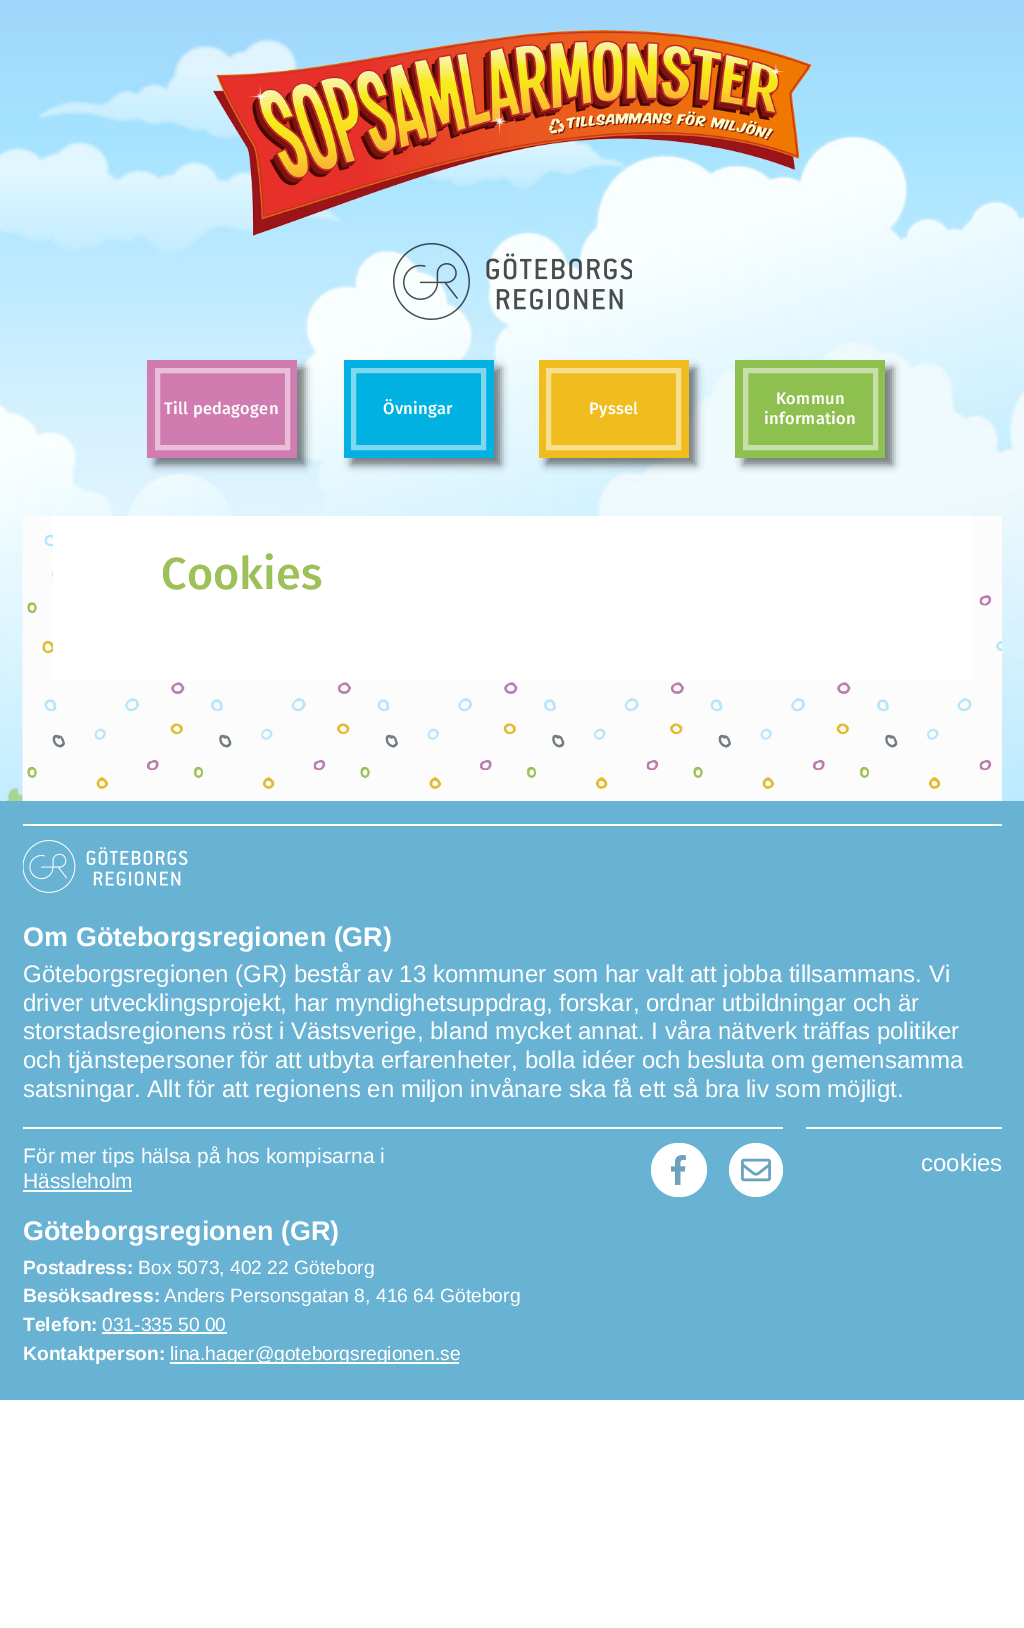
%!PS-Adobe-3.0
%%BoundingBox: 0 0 1024 1628
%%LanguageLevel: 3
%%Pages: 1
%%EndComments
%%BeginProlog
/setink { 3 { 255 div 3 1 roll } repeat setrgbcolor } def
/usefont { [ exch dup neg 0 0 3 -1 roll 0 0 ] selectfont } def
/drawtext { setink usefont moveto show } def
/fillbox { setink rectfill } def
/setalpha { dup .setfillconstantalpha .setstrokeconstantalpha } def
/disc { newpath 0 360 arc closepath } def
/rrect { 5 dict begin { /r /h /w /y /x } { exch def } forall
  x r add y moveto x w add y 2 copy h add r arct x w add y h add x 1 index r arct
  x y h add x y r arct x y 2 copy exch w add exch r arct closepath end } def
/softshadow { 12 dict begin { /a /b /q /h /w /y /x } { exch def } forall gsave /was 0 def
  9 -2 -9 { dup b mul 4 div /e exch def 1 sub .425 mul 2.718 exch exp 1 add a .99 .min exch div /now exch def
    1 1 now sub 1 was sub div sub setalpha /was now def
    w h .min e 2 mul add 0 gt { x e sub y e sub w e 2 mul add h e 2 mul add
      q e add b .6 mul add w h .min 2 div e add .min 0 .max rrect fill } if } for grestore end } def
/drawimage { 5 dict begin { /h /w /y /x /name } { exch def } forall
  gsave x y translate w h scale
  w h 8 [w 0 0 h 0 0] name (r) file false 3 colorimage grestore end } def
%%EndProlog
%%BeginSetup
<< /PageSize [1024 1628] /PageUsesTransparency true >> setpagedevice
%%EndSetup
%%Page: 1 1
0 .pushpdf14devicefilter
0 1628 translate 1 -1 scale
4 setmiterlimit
0 0 1024 1628 255 255 255 fillbox
(assets/img1.rgb) 0 0 1024 801 drawimage
(assets/img2.rgb) 213 30 599 206 drawimage
(assets/img3.rgb) 393 243 239 77 drawimage
0 0 0 setink
155 368 150 97 0 4 0.5 softshadow
147 360 150 98 209 124 176 fillbox
232 190 216 setink
5 setlinewidth
157.5 370.5 130 77 rectstroke
/FiraSans-Medium 16.5 usefont
255 255 255 setink
164 414 moveto 0.25 0 (Till pedagogen) ashow
0 0 0 setink
351 368 150 97 0 4 0.5 softshadow
344 360 150 98 0 177 225 fillbox
128 216 240 setink
353.5 370.5 130 77 rectstroke
255 255 255 setink
383 414 moveto 0.25 0 (Övningar) ashow
0 0 0 setink
546 368 150 97 0 4 0.5 softshadow
539 360 150 98 241 188 30 fillbox
248 222 143 setink
548.5 370.5 130 77 rectstroke
255 255 255 setink
589 414 moveto 0.25 0 (Pyssel) ashow
0 0 0 setink
743 368 150 97 0 4 0.5 softshadow
735 360 150 98 142 192 79 fillbox
199 224 167 setink
745.5 370.5 130 77 rectstroke
255 255 255 setink
776 404 moveto 0.25 0 (Kommun) ashow
764 424 moveto 0.25 0 (information) ashow
(assets/img4.rgb) 22 516 980 285 drawimage
53 516 919 165 255 255 255 fillbox
(Cookies) 161 589 /FiraSans-Medium 45 158 192 88 drawtext
0 801 1024 599 104 178 212 fillbox
23 824 979 2 255 255 255 fillbox
(assets/img5.rgb) 23 840 165 53 drawimage
(Om Göteborgsregionen \(GR\)) 23 946 /LiberationSans-Bold 27 255 255 255 drawtext
(Göteborgsregionen \(GR\) består av 13 kommuner som har valt att jobba tillsammans. Vi) 23 982 /LiberationSans-Regular 24 255 255 255 drawtext
(driver utvecklingsprojekt, har myndighetsuppdrag, forskar, ordnar utbildningar och är) 23 1011 /LiberationSans-Regular 24 255 255 255 drawtext
(storstadsregionens röst i Västsverige, bland mycket annat. I våra nätverk träffas politiker) 23 1039 /LiberationSans-Regular 24 255 255 255 drawtext
(och tjänstepersoner för att utbyta erfarenheter, bolla idéer och besluta om gemensamma) 23 1068 /LiberationSans-Regular 24 255 255 255 drawtext
(satsningar. Allt för att regionens en miljon invånare ska få ett så bra liv som möjligt.) 23 1097 /LiberationSans-Regular 24 255 255 255 drawtext
23 1127 760 2 255 255 255 fillbox
(För mer tips hälsa på hos kompisarna i) 23 1163 /LiberationSans-Regular 21 255 255 255 drawtext
(Hässleholm) 23 1188 /LiberationSans-Regular 21 255 255 255 drawtext
23 1190 109 2 255 255 255 fillbox
651 1143 56 54 27 rrect fill
(assets/img6.rgb) 671 1155 15 30 drawimage
756 1170 27 disc fill
(assets/img7.rgb) 741 1158 30 24 drawimage
(Göteborgsregionen \(GR\)) 23 1240 /LiberationSans-Bold 27 255 255 255 drawtext
(Postadress:) 23 1274 /LiberationSans-Bold 19.25 255 255 255 drawtext
(Box 5073, 402 22 Göteborg) 138 1274 /LiberationSans-Regular 19.25 255 255 255 drawtext
(Besöksadress:) 23 1302 /LiberationSans-Bold 19.25 255 255 255 drawtext
(Anders Personsgatan 8, 416 64 Göteborg) 164 1302 /LiberationSans-Regular 19.25 255 255 255 drawtext
(Telefon:) 23 1331 /LiberationSans-Bold 19.25 255 255 255 drawtext
(031-335 50 00) 102 1331 /LiberationSans-Regular 19.25 255 255 255 drawtext
102 1332 125 2 255 255 255 fillbox
(Kontaktperson:) 23 1360 /LiberationSans-Bold 19.25 255 255 255 drawtext
170 1362 289 2 255 255 255 fillbox
(lina.hager@goteborgsregionen.se) 170 1360 /LiberationSans-Regular 19.25 255 255 255 drawtext
806 1127 196 2 255 255 255 fillbox
(cookies) 921 1171 /LiberationSans-Regular 24 255 255 255 drawtext
.poppdf14devicefilter showpage
%%EOF
